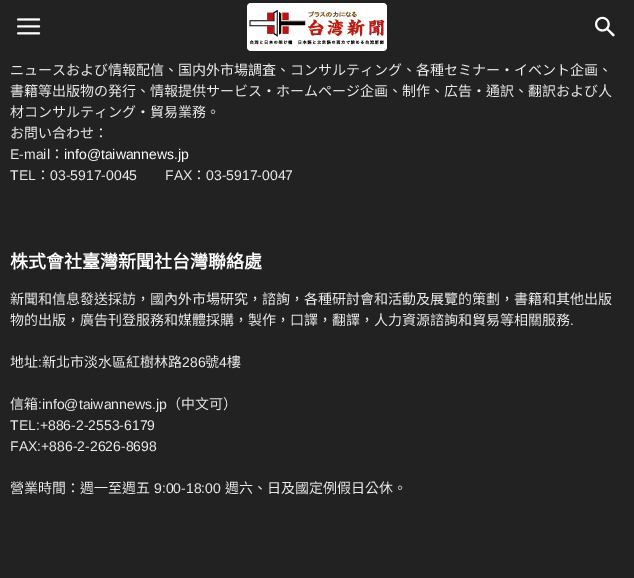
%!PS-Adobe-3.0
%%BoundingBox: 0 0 634 578
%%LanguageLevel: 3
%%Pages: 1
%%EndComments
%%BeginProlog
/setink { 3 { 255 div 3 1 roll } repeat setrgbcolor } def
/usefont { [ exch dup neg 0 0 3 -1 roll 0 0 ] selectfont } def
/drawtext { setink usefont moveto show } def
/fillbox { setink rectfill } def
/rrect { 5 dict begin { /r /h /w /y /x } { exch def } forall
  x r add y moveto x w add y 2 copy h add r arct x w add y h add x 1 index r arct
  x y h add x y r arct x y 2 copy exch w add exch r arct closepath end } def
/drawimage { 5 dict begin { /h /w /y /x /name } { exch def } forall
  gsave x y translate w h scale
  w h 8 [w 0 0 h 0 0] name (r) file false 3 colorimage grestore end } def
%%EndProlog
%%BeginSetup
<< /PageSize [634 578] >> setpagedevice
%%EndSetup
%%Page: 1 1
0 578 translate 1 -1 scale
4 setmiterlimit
0 0 634 578 34 34 34 fillbox
(assets/img1.rgb) 17 18 24 17 drawimage
255 255 255 setink
247 3 140 48 4 rrect fill
(assets/img2.rgb) 249 9 136 36 drawimage
(assets/img3.rgb) 595 16 20 21 drawimage
(ニュースおよび情報配信、国内外市場調査、コンサルティング、各種セミナー・イベント企画、) 10 75 /NotoSansCJKTC-Regular 14 234 234 234 drawtext
(書籍等出版物の発行、情報提供サービス・ホームページ企画、制作、広告・通訳、翻訳および人) 10 96 /NotoSansCJKTC-Regular 14 234 234 234 drawtext
(材コンサルティング・貿易業務。) 10 117 /NotoSansCJKTC-Regular 14 234 234 234 drawtext
(お問い合わせ：) 10 138 /NotoSansCJKTC-Regular 14 234 234 234 drawtext
(E-mail) 10 159 /LiberationSans-Regular 14 234 234 234 drawtext
(：) 50 159 /NotoSansCJKTC-Regular 14 234 234 234 drawtext
(info@taiwannews.jp) 64 159 /LiberationSans-Regular 14 255 255 255 drawtext
(TEL) 10 180 /LiberationSans-Regular 14 234 234 234 drawtext
(：) 36 180 /NotoSansCJKTC-Regular 14 234 234 234 drawtext
(03-5917-0045) 50 180 /LiberationSans-Regular 14 234 234 234 drawtext
(FAX) 165 180 /LiberationSans-Regular 14 234 234 234 drawtext
(：) 192 180 /NotoSansCJKTC-Regular 14 234 234 234 drawtext
(03-5917-0047) 206 180 /LiberationSans-Regular 14 234 234 234 drawtext
(株式會社臺灣新聞社台灣聯絡處) 10 268 /NotoSansCJKTC-Bold 18 255 255 255 drawtext
(新聞和信息發送採訪，國內外市場研究，諮詢，各種研討會和活動及展覽的策劃，書籍和其他出版) 10 304 /NotoSansCJKTC-Regular 14 234 234 234 drawtext
(物的出版，廣告刊登服務和媒體採購，製作，口譯，翻譯，人力資源諮詢和貿易等相關服務) 10 325 /NotoSansCJKTC-Regular 14 234 234 234 drawtext
(.) 570 325 /LiberationSans-Regular 14 234 234 234 drawtext
(地址) 10 367 /NotoSansCJKTC-Regular 14 234 234 234 drawtext
(:) 38 367 /LiberationSans-Regular 14 234 234 234 drawtext
(新北市淡水區紅樹林路) 42 367 /NotoSansCJKTC-Regular 14 234 234 234 drawtext
(286) 182 367 /LiberationSans-Regular 14 234 234 234 drawtext
(號) 205 367 /NotoSansCJKTC-Regular 14 234 234 234 drawtext
(4) 219 367 /LiberationSans-Regular 14 234 234 234 drawtext
(樓) 227 367 /NotoSansCJKTC-Regular 14 234 234 234 drawtext
(信箱) 10 409 /NotoSansCJKTC-Regular 14 234 234 234 drawtext
(:info@taiwannews.jp) 38 409 /LiberationSans-Regular 14 234 234 234 drawtext
(（中文可）) 167 409 /NotoSansCJKTC-Regular 14 234 234 234 drawtext
(TEL:+886-2-2553-6179) 10 430 /LiberationSans-Regular 14 234 234 234 drawtext
(FAX:+886-2-2626-8698) 10 451 /LiberationSans-Regular 14 234 234 234 drawtext
(營業時間：週一至週五) 10 493 /NotoSansCJKTC-Regular 14 234 234 234 drawtext
(9:00-18:00) 154 493 /LiberationSans-Regular 14 234 234 234 drawtext
(週六、日及國定例假日公休。) 225 493 /NotoSansCJKTC-Regular 14 234 234 234 drawtext
showpage
%%EOF
